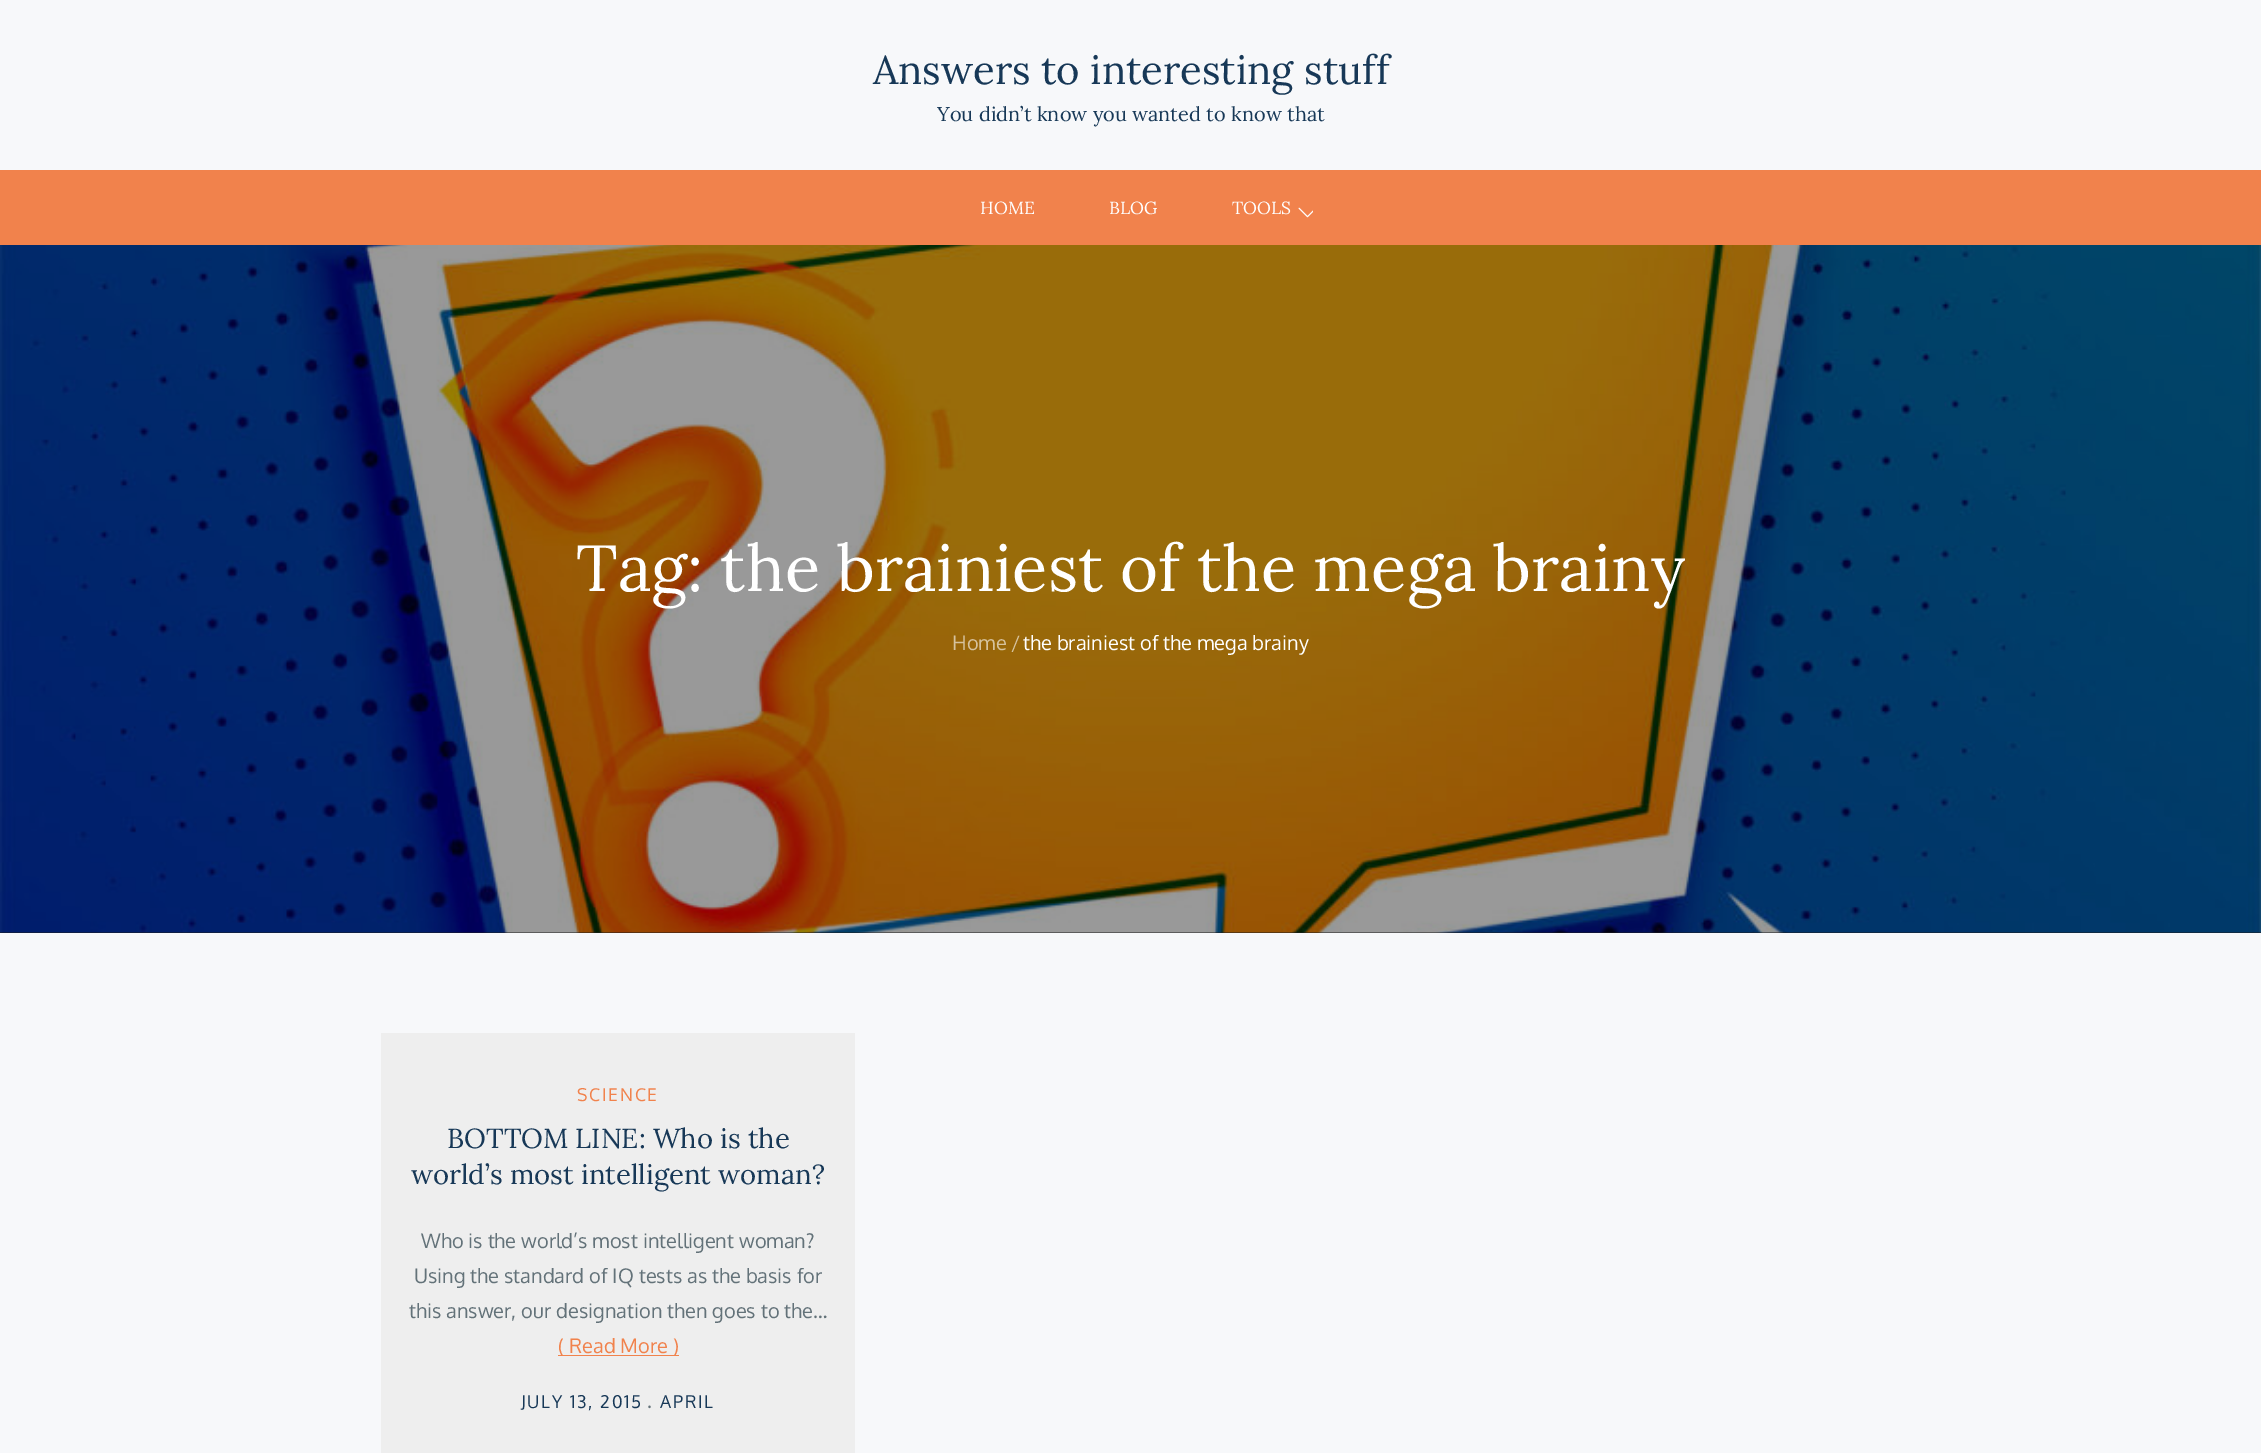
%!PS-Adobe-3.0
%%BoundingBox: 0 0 2261 1453
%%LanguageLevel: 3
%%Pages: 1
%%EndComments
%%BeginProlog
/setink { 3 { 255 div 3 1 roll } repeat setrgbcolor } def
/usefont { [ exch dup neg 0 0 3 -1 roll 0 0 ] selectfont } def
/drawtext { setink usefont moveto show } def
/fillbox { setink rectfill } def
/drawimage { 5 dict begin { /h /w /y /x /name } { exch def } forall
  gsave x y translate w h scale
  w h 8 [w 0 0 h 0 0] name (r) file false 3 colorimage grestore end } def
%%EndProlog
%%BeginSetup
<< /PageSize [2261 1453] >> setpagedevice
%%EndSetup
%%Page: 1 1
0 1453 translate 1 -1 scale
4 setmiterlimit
0 0 2261 1453 247 248 250 fillbox
(Answers to interesting stuff) 873 84 /Lora-Regular 40 23 56 87 drawtext
(You didn’t know you wanted to know that) 937 121 /Lora-Regular 20 23 56 87 drawtext
0 170 2261 75 241 130 76 fillbox
(HOME) 980 214 /Lora-Regular 17.5 255 255 255 drawtext
(BLOG) 1109 214 /Lora-Regular 17.5 255 255 255 drawtext
(TOOLS) 1232 214 /Lora-Regular 17.5 255 255 255 drawtext
(assets/img1.rgb) 1298 207 15 11 drawimage
0 932 2261 1 31 31 31 fillbox
(assets/img2.rgb) 0 245 2261 688 drawimage
(Tag: the brainiest of the mega brainy) 576 591 /Lora-Regular 65 255 255 255 drawtext
(Home /) 952 650 /Oxygen-Regular 20 214 194 157 drawtext
(the brainiest of the mega brainy) 1023 650 /Oxygen-Regular 20 255 255 255 drawtext
381 1033 474 420 238 238 238 fillbox
/Oxygen-Regular 17.5 usefont
241 130 76 setink
577 1101 moveto 1.75 0 (SCIENCE) ashow
(BOTTOM LINE: Who is the) 447 1148 /Lora-Regular 27.5 23 56 87 drawtext
(world’s most intelligent woman?) 411 1184 /Lora-Regular 27.5 23 56 87 drawtext
(Who is the world’s most intelligent woman?) 421 1248 /Oxygen-Regular 20 99 114 121 drawtext
(Using the standard of IQ tests as the basis for) 414 1283 /Oxygen-Regular 20 99 114 121 drawtext
(this answer, our designation then goes to the…) 409 1318 /Oxygen-Regular 20 99 114 121 drawtext
558 1355 121 1 241 130 76 fillbox
(\( Read More \)) 558 1353 /Oxygen-Regular 20 241 130 76 drawtext
/Oxygen-Regular 17.5 usefont
23 56 87 setink
521 1408 moveto 1.75 0 (JULY 13, 2015) ashow
(.) 647 1408 /Oxygen-Regular 20 99 114 121 drawtext
/Oxygen-Regular 17.5 usefont
23 56 87 setink
660 1408 moveto 1.75 0 (APRIL) ashow
showpage
%%EOF
